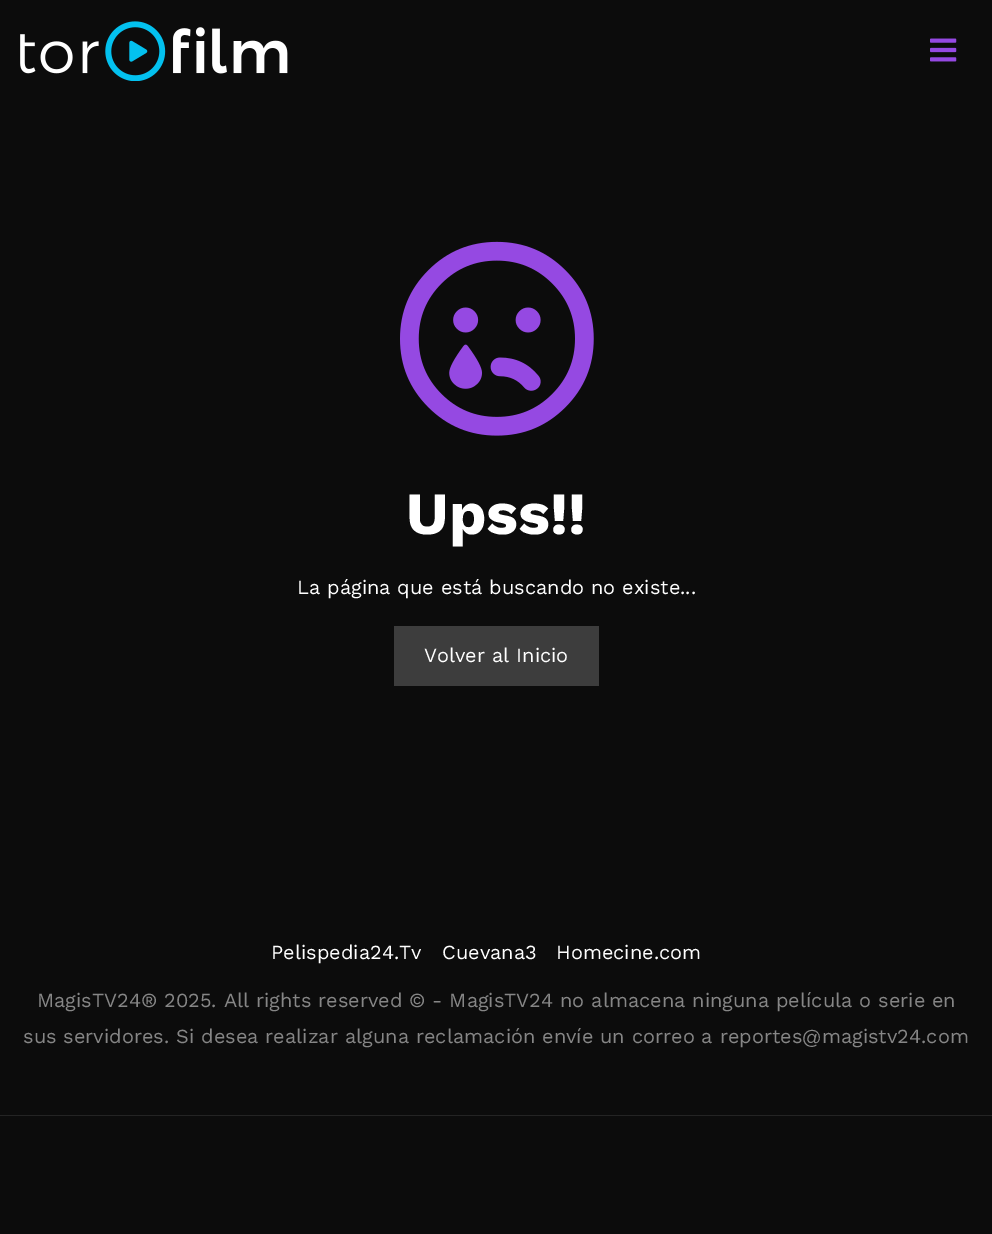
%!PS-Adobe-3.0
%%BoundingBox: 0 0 992 1234
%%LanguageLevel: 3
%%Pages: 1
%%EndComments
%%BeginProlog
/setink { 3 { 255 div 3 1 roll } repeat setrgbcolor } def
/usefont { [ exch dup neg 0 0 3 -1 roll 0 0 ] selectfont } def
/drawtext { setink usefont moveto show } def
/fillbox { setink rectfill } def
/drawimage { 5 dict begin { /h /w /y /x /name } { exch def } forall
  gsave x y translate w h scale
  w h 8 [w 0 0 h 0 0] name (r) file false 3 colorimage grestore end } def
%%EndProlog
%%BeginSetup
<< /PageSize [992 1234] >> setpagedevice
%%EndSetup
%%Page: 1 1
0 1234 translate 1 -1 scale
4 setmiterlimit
0 0 992 1234 12 12 12 fillbox
(assets/img1.rgb) 20 21 268 60 drawimage
(assets/img2.rgb) 930 38 27 24 drawimage
(assets/img3.rgb) 400 241 194 195 drawimage
(Upss!!) 406 534 /WorkSans-Bold 60 255 255 255 drawtext
(La página que está buscando no existe...) 297 594 /WorkSans-Regular 20 255 255 255 drawtext
394 626 205 60 61 61 61 fillbox
(Volver al Inicio) 424 662 /WorkSans-Regular 20 255 255 255 drawtext
(Pelispedia24.Tv) 271 959 /WorkSans-Regular 20 255 255 255 drawtext
(Cuevana3) 442 959 /WorkSans-Regular 20 255 255 255 drawtext
(Homecine.com) 556 959 /WorkSans-Regular 20 255 255 255 drawtext
(MagisTV24® 2025. All rights reserved © - MagisTV24 no almacena ninguna película o serie en) 37 1007 /WorkSans-Regular 20 134 134 134 drawtext
(sus servidores. Si desea realizar alguna reclamación envíe un correo a reportes@magistv24.com) 23 1043 /WorkSans-Regular 20 134 134 134 drawtext
0 1115 992 1 36 36 36 fillbox
showpage
%%EOF
